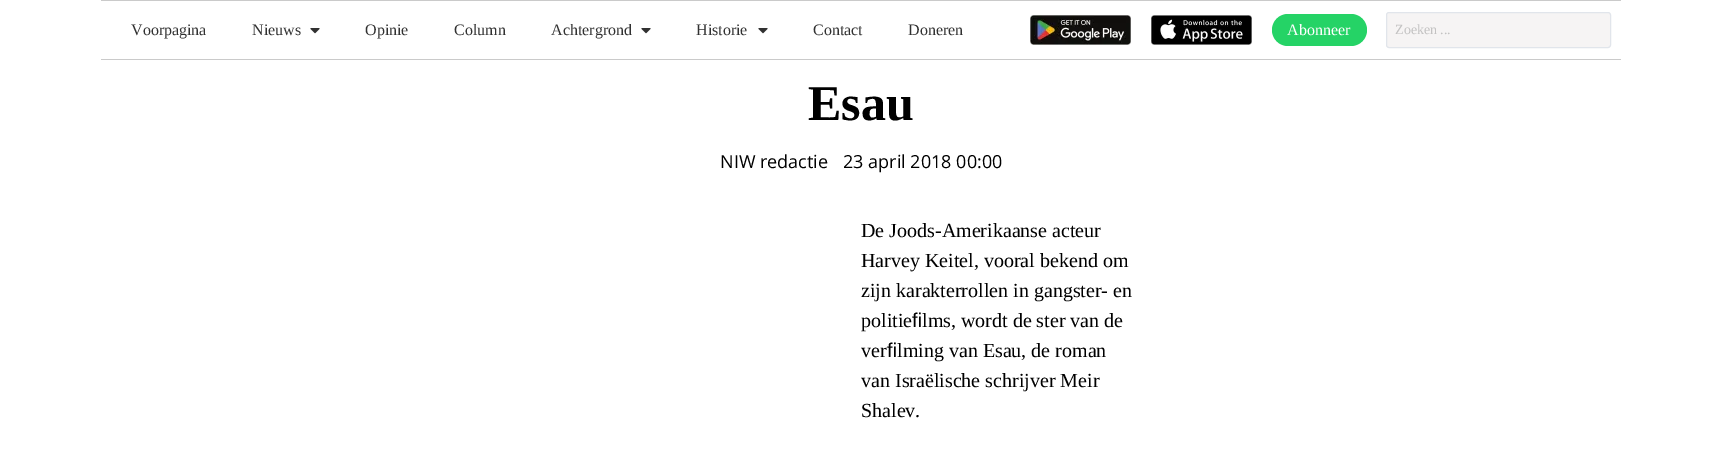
%!PS-Adobe-3.0
%%BoundingBox: 0 0 1722 458
%%LanguageLevel: 3
%%Pages: 1
%%EndComments
%%BeginProlog
/setink { 3 { 255 div 3 1 roll } repeat setrgbcolor } def
/usefont { [ exch dup neg 0 0 3 -1 roll 0 0 ] selectfont } def
/drawtext { setink usefont moveto show } def
/fillbox { setink rectfill } def
/rrect { 5 dict begin { /r /h /w /y /x } { exch def } forall
  x r add y moveto x w add y 2 copy h add r arct x w add y h add x 1 index r arct
  x y h add x y r arct x y 2 copy exch w add exch r arct closepath end } def
/drawimage { 5 dict begin { /h /w /y /x /name } { exch def } forall
  gsave x y translate w h scale
  w h 8 [w 0 0 h 0 0] name (r) file false 3 colorimage grestore end } def
%%EndProlog
%%BeginSetup
<< /PageSize [1722 458] >> setpagedevice
%%EndSetup
%%Page: 1 1
0 458 translate 1 -1 scale
4 setmiterlimit
0 0 1722 458 255 255 255 fillbox
101 0 1520 1 202 202 202 fillbox
101 59 1520 1 202 202 202 fillbox
(Voorpagina) 131 35 /Tinos-Regular 16 49 49 49 drawtext
(Nieuws) 252 35 /Tinos-Regular 16 49 49 49 drawtext
(assets/img1.rgb) 310 28 10 6 drawimage
(Opinie) 365 35 /Tinos-Regular 16 49 49 49 drawtext
(Column) 454 35 /Tinos-Regular 16 49 49 49 drawtext
(Achtergrond) 551 35 /Tinos-Regular 16 49 49 49 drawtext
(assets/img1.rgb) 641 28 10 6 drawimage
(Historie) 696 35 /Tinos-Regular 16 49 49 49 drawtext
(assets/img1.rgb) 758 28 10 6 drawimage
(Contact) 813 35 /Tinos-Regular 16 49 49 49 drawtext
(Doneren) 908 35 /Tinos-Regular 16 49 49 49 drawtext
(assets/img2.rgb) 1030 15 101 30 drawimage
(assets/img3.rgb) 1151 15 101 30 drawimage
37 211 102 setink
1272 14 95 32 16 rrect fill
(Abonneer) 1287 35 /Tinos-Regular 16 255 255 255 drawtext
246 244 244 setink
1386.5 12.5 224 35 2.5 rrect gsave fill grestore
225 229 235 setink
stroke
(Zoeken ...) 1395 34 /Tinos-Regular 14 195 194 194 drawtext
(Esau) 808 120 /Tinos-Bold 50 0 0 0 drawtext
(NIW redactie) 720 168 /OpenSans-Regular 18 0 0 0 drawtext
(23 april 2018 00:00) 843 168 /OpenSans-Regular 18 0 0 0 drawtext
(De Joods-Amerikaanse acteur) 861 237 /Tinos-Regular 20 0 0 0 drawtext
(Harvey Keitel, vooral bekend om) 861 267 /Tinos-Regular 20 0 0 0 drawtext
(zijn karakterrollen in gangster- en) 861 297 /Tinos-Regular 20 0 0 0 drawtext
(politie) 861 327 /Tinos-Regular 20 0 0 0 drawtext
(ﬁ) 912 327 /LiberationSans-Regular 20 0 0 0 drawtext
(lms, wordt de ster van de) 922 327 /Tinos-Regular 20 0 0 0 drawtext
(ver) 861 357 /Tinos-Regular 20 0 0 0 drawtext
(ﬁ) 887 357 /LiberationSans-Regular 20 0 0 0 drawtext
(lming van Esau, de roman) 897 357 /Tinos-Regular 20 0 0 0 drawtext
(van Israëlische schrijver Meir) 861 387 /Tinos-Regular 20 0 0 0 drawtext
(Shalev.) 861 417 /Tinos-Regular 20 0 0 0 drawtext
showpage
%%EOF
